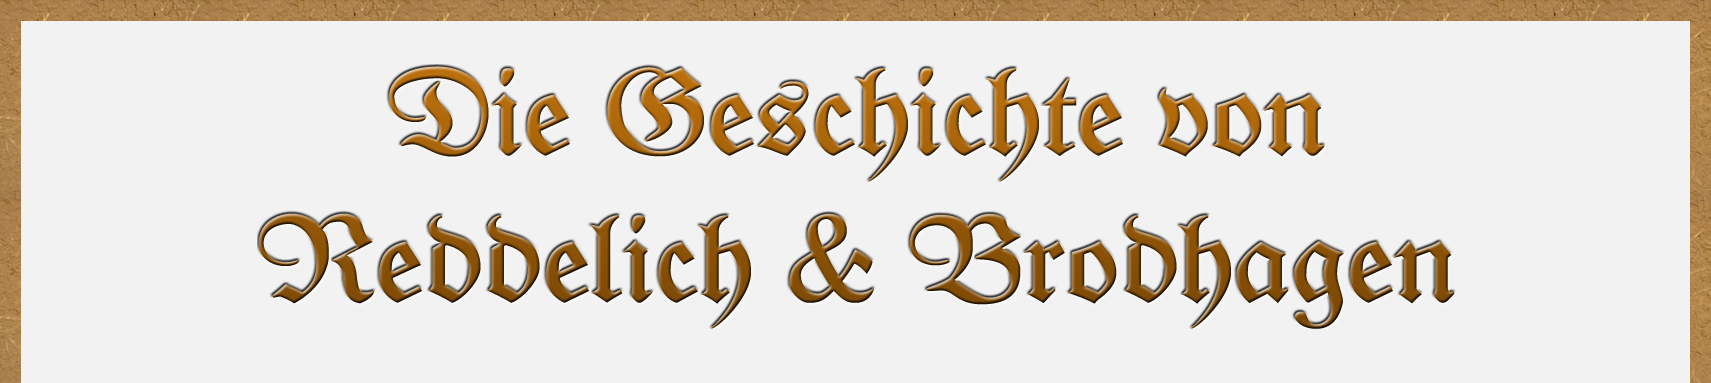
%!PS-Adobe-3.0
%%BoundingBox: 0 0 1711 383
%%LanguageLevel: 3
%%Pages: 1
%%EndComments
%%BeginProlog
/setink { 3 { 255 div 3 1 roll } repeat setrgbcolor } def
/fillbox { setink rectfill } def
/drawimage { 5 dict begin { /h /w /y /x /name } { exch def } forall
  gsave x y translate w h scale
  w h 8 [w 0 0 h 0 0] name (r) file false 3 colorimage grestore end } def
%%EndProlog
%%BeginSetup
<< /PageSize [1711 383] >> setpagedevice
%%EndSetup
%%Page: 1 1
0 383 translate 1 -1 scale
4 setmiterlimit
0 0 1711 383 255 255 255 fillbox
(assets/img1.rgb) 0 0 1711 383 drawimage
21 21 1669 362 242 242 242 fillbox
(assets/img2.rgb) 257 64 1199 265 drawimage
showpage
%%EOF
